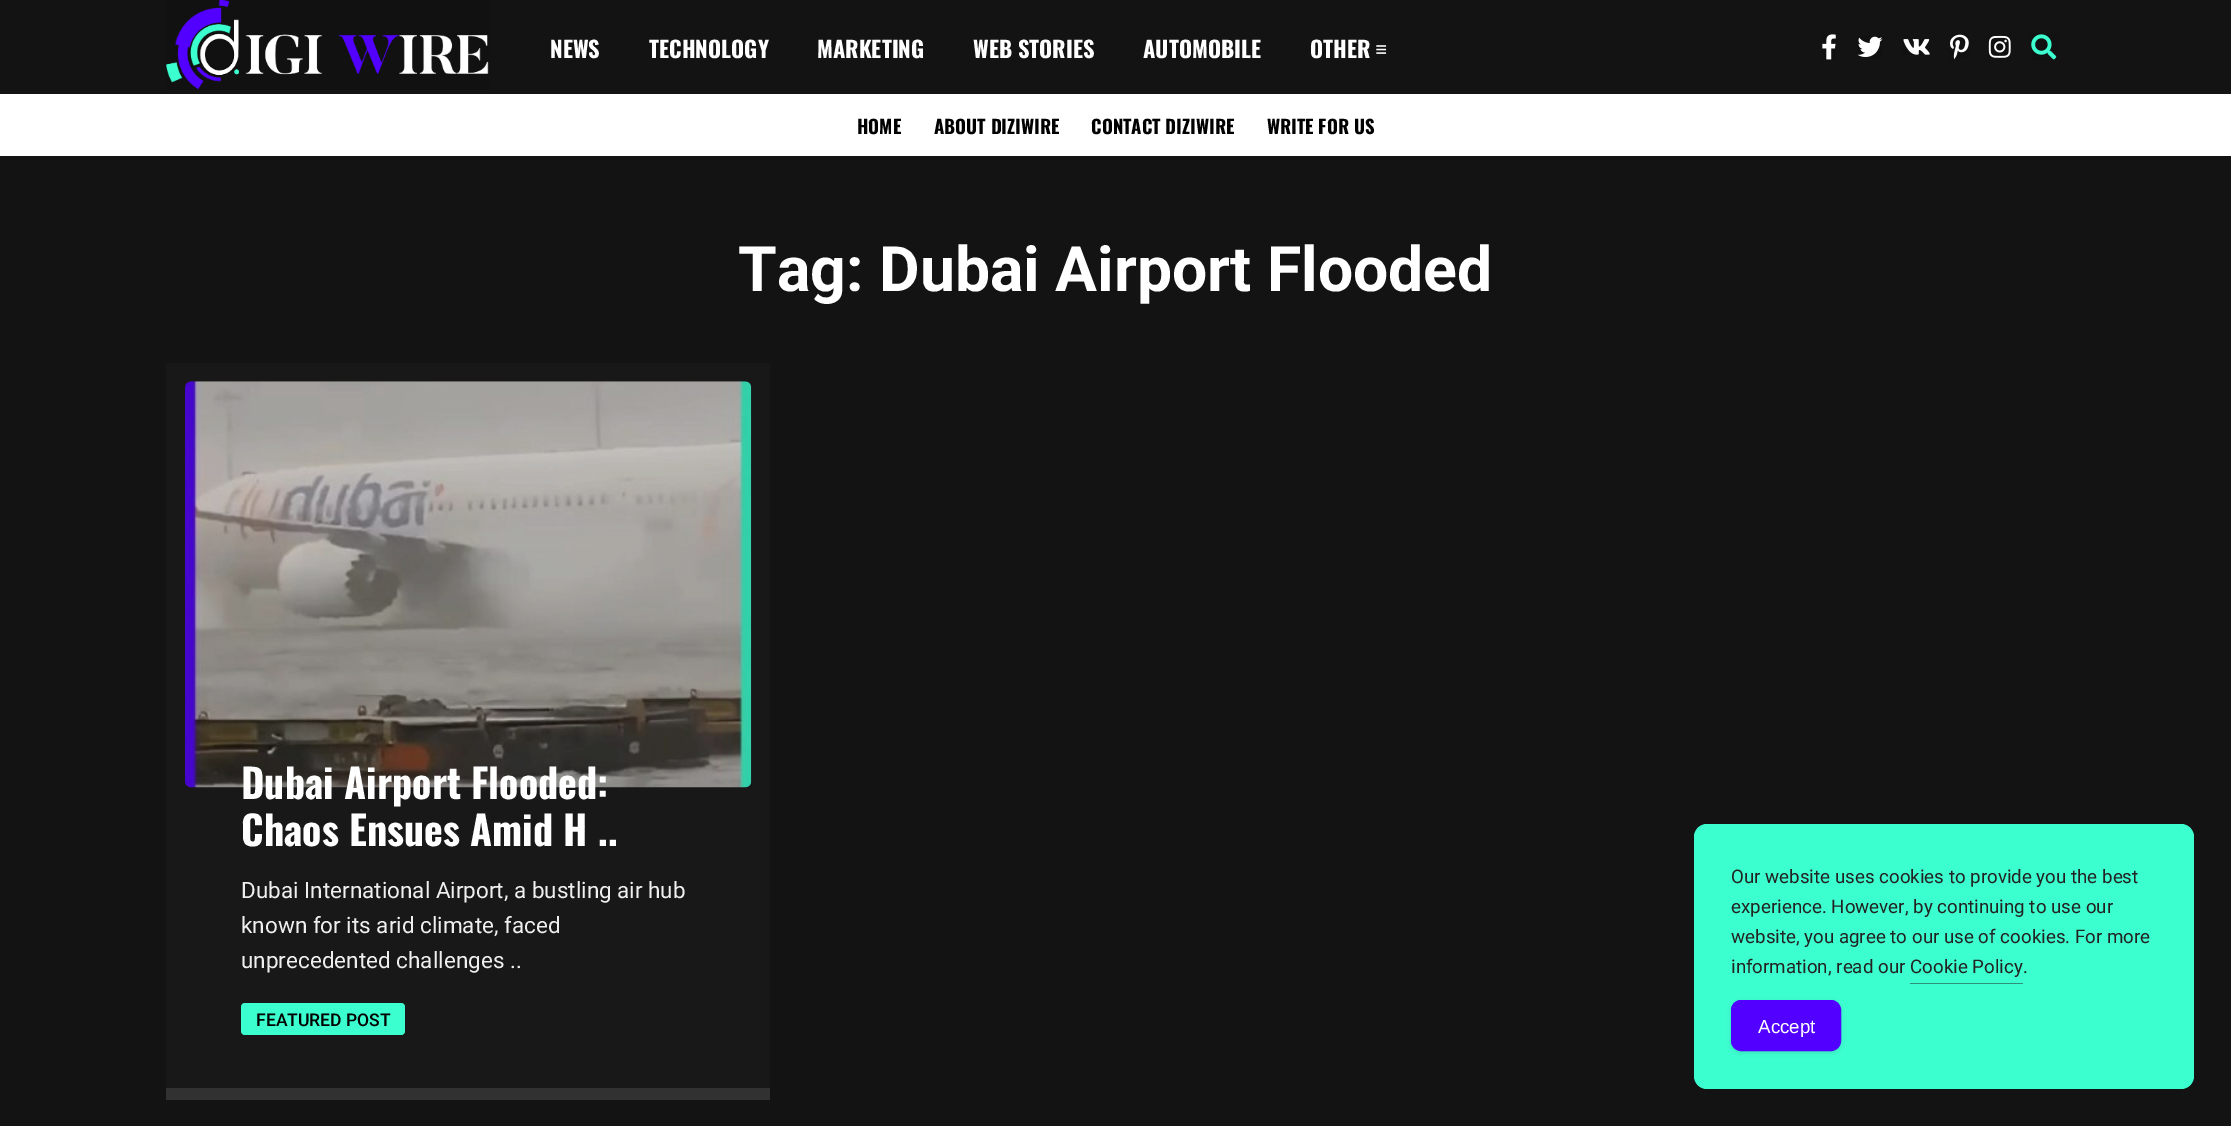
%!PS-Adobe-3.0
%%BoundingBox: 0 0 2231 1126
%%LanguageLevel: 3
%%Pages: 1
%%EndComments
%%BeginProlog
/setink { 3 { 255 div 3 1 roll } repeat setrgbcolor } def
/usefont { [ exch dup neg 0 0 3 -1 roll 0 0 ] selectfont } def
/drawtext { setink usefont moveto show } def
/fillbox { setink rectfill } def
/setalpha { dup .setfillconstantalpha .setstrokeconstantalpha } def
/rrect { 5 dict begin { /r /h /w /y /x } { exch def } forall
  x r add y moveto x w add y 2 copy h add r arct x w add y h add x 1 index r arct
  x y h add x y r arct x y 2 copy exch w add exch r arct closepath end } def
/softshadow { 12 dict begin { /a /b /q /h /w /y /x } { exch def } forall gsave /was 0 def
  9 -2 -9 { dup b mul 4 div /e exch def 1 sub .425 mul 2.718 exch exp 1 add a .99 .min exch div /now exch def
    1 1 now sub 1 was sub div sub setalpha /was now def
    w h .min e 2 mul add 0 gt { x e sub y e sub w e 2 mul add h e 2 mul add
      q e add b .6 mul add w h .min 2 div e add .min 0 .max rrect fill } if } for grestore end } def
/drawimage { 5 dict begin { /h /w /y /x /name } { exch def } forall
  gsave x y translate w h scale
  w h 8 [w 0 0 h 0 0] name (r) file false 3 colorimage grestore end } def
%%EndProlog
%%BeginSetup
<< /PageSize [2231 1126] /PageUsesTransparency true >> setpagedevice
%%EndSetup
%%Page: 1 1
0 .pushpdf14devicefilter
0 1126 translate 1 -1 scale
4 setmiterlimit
0 0 2231 1126 19 19 19 fillbox
(assets/img1.rgb) 166 0 323 90 drawimage
(NEWS) 550 58 /Oswald-Bold 22.5 255 255 255 drawtext
(TECHNOLOGY) 649 58 /Oswald-Bold 22.5 255 255 255 drawtext
(MARKETING) 817 58 /Oswald-Bold 22.5 255 255 255 drawtext
(WEB STORIES) 973 58 /Oswald-Bold 22.5 255 255 255 drawtext
(AUTOMOBILE) 1143 58 /Oswald-Bold 22.5 255 255 255 drawtext
(OTHER) 1310 58 /Oswald-Bold 22.5 255 255 255 drawtext
(assets/img2.rgb) 1376 45 11 9 drawimage
(assets/img3.rgb) 1822 34 14 26 drawimage
(assets/img4.rgb) 1857 36 26 21 drawimage
(assets/img5.rgb) 1903 39 27 16 drawimage
(assets/img6.rgb) 1950 34 19 25 drawimage
(assets/img7.rgb) 1988 35 23 23 drawimage
(assets/img8.rgb) 2031 34 26 26 drawimage
0 94 2231 62 255 255 255 fillbox
(HOME) 857 134 /Oswald-Bold 18.75 0 0 0 drawtext
(ABOUT DIZIWIRE) 934 134 /Oswald-Bold 18.75 0 0 0 drawtext
(CONTACT DIZIWIRE) 1091 134 /Oswald-Bold 18.75 0 0 0 drawtext
(WRITE FOR US) 1267 134 /Oswald-Bold 18.75 0 0 0 drawtext
(Tag: Dubai Airport Flooded) 738 291 /Roboto-Bold 62.5 255 255 255 drawtext
166 363 604 725 24 24 24 fillbox
166 1088 604 12 49 49 49 fillbox
(assets/img9.rgb) 185 381 567 407 drawimage
(Dubai Airport Flooded:) 241 799 /Oswald-Bold 40 255 255 255 drawtext
(Chaos Ensues Amid H ..) 241 846 /Oswald-Bold 40 255 255 255 drawtext
(Dubai International Airport, a bustling air hub) 241 898 /Roboto-Regular 22.5 239 239 239 drawtext
(known for its arid climate, faced) 241 933 /Roboto-Regular 22.5 239 239 239 drawtext
(unprecedented challenges ..) 241 968 /Roboto-Regular 22.5 239 239 239 drawtext
60 255 208 setink
241 1003 164 32 4 rrect fill
(FEATURED POST) 256 1026 /Roboto-Medium 17.5 0 0 0 drawtext
60 255 208 setink
1694 824 500 265 13 rrect fill
(Our website uses cookies to provide you the best) 1731 883 /Roboto-Regular 18.75 34 34 34 drawtext
(experience. However, by continuing to use our) 1731 913 /Roboto-Regular 18.75 34 34 34 drawtext
(website, you agree to our use of cookies. For more) 1731 943 /Roboto-Regular 18.75 34 34 34 drawtext
(information, read our Cookie Policy) 1731 973 /Roboto-Regular 18.75 34 34 34 drawtext
(.) 2023 973 /Roboto-Regular 18.75 34 34 34 drawtext
1910 983 113 1 47 145 121 fillbox
0 0 0 setink
1731 1001 110 52 10 2.5 0.1 softshadow
82 0 255 setink
1731.5 1000.5 109 50 9.5 rrect gsave fill grestore
stroke
(Accept) 1758 1033 /LiberationSans-Regular 18.75 255 255 255 drawtext
.poppdf14devicefilter showpage
%%EOF
